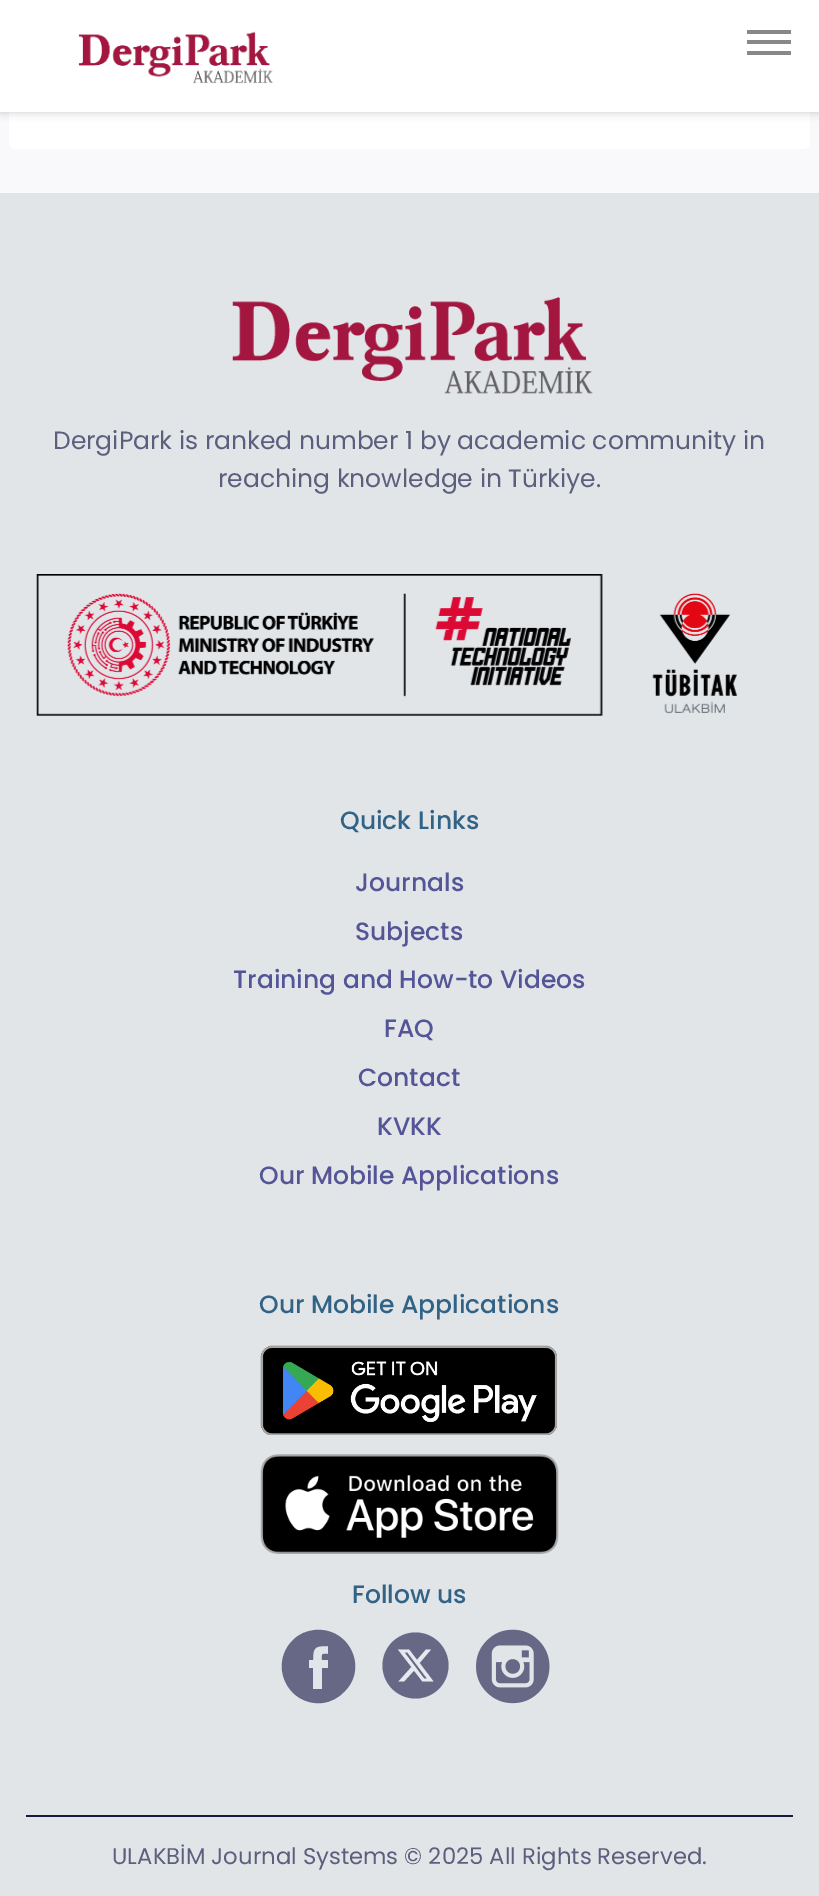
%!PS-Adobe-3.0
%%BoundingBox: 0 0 819 1896
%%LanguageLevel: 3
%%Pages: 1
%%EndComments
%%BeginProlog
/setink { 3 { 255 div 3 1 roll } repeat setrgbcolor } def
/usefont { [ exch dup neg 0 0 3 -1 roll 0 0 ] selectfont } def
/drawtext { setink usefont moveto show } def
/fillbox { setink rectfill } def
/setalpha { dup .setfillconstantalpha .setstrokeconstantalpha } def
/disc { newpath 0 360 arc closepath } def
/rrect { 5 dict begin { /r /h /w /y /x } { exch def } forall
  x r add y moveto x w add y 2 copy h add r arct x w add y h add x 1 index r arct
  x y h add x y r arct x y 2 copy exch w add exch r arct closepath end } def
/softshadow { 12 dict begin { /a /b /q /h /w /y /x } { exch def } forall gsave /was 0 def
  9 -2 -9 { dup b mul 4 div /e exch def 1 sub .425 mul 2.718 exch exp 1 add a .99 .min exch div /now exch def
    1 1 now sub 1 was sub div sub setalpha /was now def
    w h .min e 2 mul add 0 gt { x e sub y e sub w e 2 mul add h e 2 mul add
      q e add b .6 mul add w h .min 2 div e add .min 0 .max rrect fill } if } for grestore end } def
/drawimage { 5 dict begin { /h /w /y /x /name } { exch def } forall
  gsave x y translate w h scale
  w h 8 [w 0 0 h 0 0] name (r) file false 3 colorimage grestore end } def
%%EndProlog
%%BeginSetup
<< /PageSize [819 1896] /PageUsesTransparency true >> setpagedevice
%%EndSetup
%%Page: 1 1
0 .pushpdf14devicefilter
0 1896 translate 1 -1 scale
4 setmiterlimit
0 0 819 1896 249 249 252 fillbox
255 255 255 setink
9 -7 801 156 7 rrect fill
0 0 0 setink
0 0 819 112 0 4.5 0.2 softshadow
0 0 819 112 255 255 255 fillbox
(assets/img1.rgb) 78 31 195 53 drawimage
747 30 44 4 136 136 136 fillbox
747 40 44 4 136 136 136 fillbox
747 51 44 4 136 136 136 fillbox
0 193 819 1703 226 229 232 fillbox
26 1815 767 2 25 26 67 fillbox
(assets/img2.rgb) 232 297 361 97 drawimage
(DergiPark is ranked number 1 by academic community in) 53 449 /Poppins-Regular 25 93 94 125 drawtext
(reaching knowledge in Türkiye.) 218 487 /Poppins-Regular 25 93 94 125 drawtext
(assets/img3.rgb) 36 574 701 142 drawimage
(Quick Links) 340 829 /Poppins-Medium 25 49 99 135 drawtext
(Journals) 355 891 /Poppins-Medium 25 83 85 151 drawtext
(Subjects) 355 940 /Poppins-Medium 25 83 85 151 drawtext
(Training and How-to Videos) 233 988 /Poppins-Medium 25 83 85 151 drawtext
(FAQ) 384 1037 /Poppins-Medium 25 83 85 151 drawtext
(Contact) 358 1086 /Poppins-Medium 25 83 85 151 drawtext
(KVKK) 377 1135 /Poppins-Medium 25 83 85 151 drawtext
(Our Mobile Applications) 259 1184 /Poppins-Medium 25 83 85 151 drawtext
(Our Mobile Applications) 259 1313 /Poppins-Medium 25 49 99 135 drawtext
(assets/img4.rgb) 260 1345 297 90 drawimage
(assets/img5.rgb) 260 1454 299 100 drawimage
(Follow us) 352 1603 /Poppins-Medium 25 49 99 135 drawtext
103 104 133 setink
293 1640 moveto 299 1634 306 1631 315 1630 curveto 349 1627 369 1668 344 1692 curveto 338 1698 331 1702 322 1703 curveto 288 1706 268 1665 293 1640 curveto closepath 328 1668 moveto 328 1660 lineto 322 1660 lineto 322 1653 321 1654 328 1654 curveto 328 1646 lineto 315 1646 313 1647 313 1660 curveto 309 1660 lineto 309 1668 lineto 313 1668 lineto 313 1689 lineto 322 1689 lineto 322 1668 lineto closepath fill
415.5 1665.5 33 disc fill
232 232 239 setink
426 1649.5 moveto 431 1649.5 lineto 419.5 1663 lineto 433.5 1681.5 lineto 422.5 1681.5 lineto 414 1670.5 lineto 404 1681.5 lineto 398.5 1681.5 lineto 411.5 1667 lineto 398 1649.5 lineto 409 1649.5 lineto 417 1660 lineto closepath 424 1678.5 moveto 427 1678.5 lineto 407.5 1652.5 lineto 404.5 1652.5 lineto closepath fill
(assets/img6.rgb) 476 1629 74 75 drawimage
(ULAKBİM Journal Systems © 2025 All Rights Reserved.) 112 1864 /Poppins-Regular 22.75 93 94 125 drawtext
.poppdf14devicefilter showpage
%%EOF
